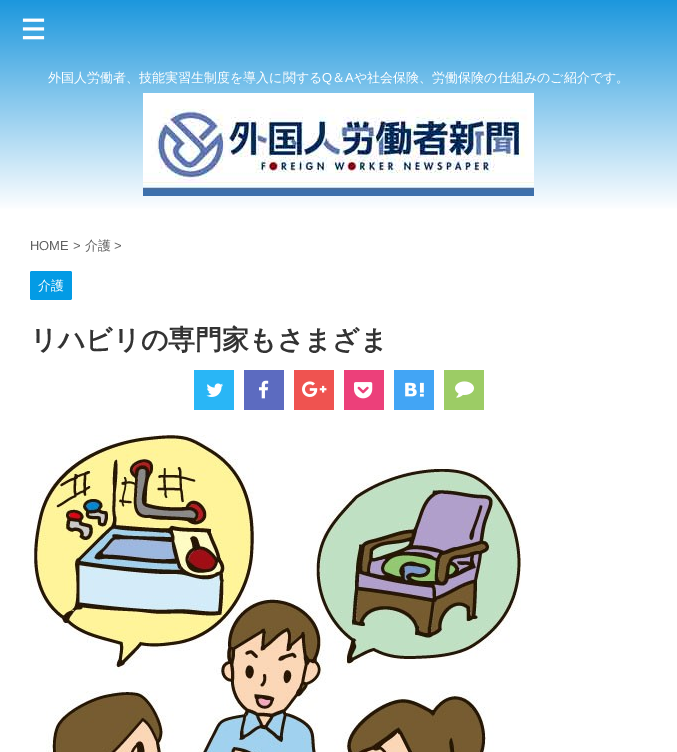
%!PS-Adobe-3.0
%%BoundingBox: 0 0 677 752
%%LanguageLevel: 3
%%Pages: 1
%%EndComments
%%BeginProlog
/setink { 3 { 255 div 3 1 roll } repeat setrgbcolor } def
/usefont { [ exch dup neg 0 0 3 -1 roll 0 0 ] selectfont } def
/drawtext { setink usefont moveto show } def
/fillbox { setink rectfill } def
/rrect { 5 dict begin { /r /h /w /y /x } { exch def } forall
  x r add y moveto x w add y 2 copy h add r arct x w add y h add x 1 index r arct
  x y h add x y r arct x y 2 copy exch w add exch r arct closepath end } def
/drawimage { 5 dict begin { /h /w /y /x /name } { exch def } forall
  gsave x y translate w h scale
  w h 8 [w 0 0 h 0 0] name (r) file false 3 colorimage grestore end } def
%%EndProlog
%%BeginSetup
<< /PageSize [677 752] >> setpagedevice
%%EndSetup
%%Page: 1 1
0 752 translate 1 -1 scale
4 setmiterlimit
0 0 677 752 255 255 255 fillbox
gsave 0 0 moveto 677 0 lineto 677 209 lineto 0 209 lineto closepath clip newpath
<< /ShadingType 2 /ColorSpace /DeviceRGB /Coords [339 0 339 211] /Extend [true true] /Function << /FunctionType 2 /Domain [0 1] /C0 [0.11 0.592 0.867] /C1 [1 1 1] /N 1 >> >> shfill grestore
(assets/img1.rgb) 22 18 23 22 drawimage
(外国人労働者、技能実習生制度を導入に関する) 48 82 /WenQuanYiZenHei-Medium 13 255 255 255 drawtext
(Q) 322 82 /LiberationSans-Regular 13 255 255 255 drawtext
(＆) 332 82 /WenQuanYiZenHei-Medium 13 255 255 255 drawtext
(A) 345 82 /LiberationSans-Regular 13 255 255 255 drawtext
(や社会保険、労働保険の仕組みのご紹介です。) 354 82 /WenQuanYiZenHei-Medium 13 255 255 255 drawtext
(assets/img2.rgb) 143 93 391 103 drawimage
(HOME >) 30 250 /LiberationSans-Regular 13 97 97 97 drawtext
(介護) 85 250 /WenQuanYiZenHei-Medium 13 97 97 97 drawtext
(>) 114 250 /LiberationSans-Regular 13 97 97 97 drawtext
3 155 229 setink
30 271 42 29 2 rrect fill
(介護) 38 290 /WenQuanYiZenHei-Medium 13 255 255 255 drawtext
(リハビリの専門家もさまざま) 30 349 /WenQuanYiZenHei-Bold 27 51 51 51 drawtext
194 370 40 40 41 182 246 fillbox
(assets/img3.rgb) 206 383 17 14 drawimage
244 370 40 40 92 107 192 fillbox
(assets/img4.rgb) 259 380 10 19 drawimage
294 370 40 40 239 83 80 fillbox
(assets/img5.rgb) 302 381 25 16 drawimage
344 370 40 40 236 64 122 fillbox
(assets/img6.rgb) 354 382 19 17 drawimage
394 370 40 40 66 165 245 fillbox
(assets/img7.rgb) 405 382 19 15 drawimage
444 370 40 40 156 204 101 fillbox
(assets/img8.rgb) 455 381 19 17 drawimage
(assets/img9.rgb) 30 435 491 317 drawimage
showpage
%%EOF
